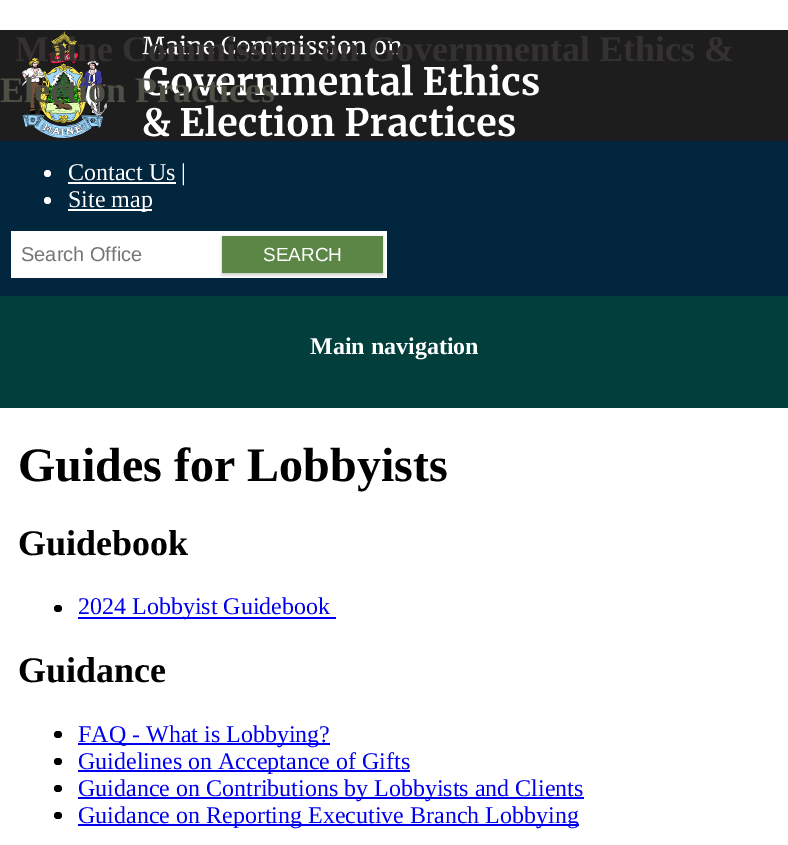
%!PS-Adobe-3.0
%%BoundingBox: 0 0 788 845
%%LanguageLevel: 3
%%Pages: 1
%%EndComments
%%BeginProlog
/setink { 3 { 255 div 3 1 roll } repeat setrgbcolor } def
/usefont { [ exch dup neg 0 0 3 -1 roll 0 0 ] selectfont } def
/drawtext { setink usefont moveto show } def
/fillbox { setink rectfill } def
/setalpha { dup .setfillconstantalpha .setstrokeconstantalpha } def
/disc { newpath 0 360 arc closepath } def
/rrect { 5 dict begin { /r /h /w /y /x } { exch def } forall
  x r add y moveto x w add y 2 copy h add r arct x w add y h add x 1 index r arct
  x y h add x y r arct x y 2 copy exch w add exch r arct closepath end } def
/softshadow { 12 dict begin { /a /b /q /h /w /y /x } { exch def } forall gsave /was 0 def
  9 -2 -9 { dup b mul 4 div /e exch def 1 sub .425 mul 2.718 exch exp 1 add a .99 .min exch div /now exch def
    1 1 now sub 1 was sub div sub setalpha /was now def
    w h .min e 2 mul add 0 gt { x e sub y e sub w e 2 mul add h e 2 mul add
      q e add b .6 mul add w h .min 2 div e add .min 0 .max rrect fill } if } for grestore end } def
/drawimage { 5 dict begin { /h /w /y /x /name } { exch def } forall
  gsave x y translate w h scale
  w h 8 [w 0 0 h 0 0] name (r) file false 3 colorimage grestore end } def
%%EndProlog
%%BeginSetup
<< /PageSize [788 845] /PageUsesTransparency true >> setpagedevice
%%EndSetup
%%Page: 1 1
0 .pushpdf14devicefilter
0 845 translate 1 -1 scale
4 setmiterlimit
0 0 788 845 255 255 255 fillbox
0 30 788 111 29 29 29 fillbox
(assets/img1.rgb) 21 31 518 108 drawimage
(Maine Commission on Governmental Ethics &) 15 61 /LiberationSerif-Bold 36 52 49 48 drawtext
(Election Practices) 0 102 /LiberationSerif-Bold 36 77 80 68 drawtext
0 141 788 155 2 38 61 fillbox
255 255 255 setink
47.5 173.5 3.5 disc fill
68 182 108 2 255 255 255 fillbox
(Contact Us |) 68 180 /LiberationSerif-Regular 24 255 255 255 drawtext
47.5 200.5 3.5 disc fill
68 209 84 2 255 255 255 fillbox
(Site map) 68 207 /LiberationSerif-Regular 24 255 255 255 drawtext
11 231 376 47 255 255 255 fillbox
(Search Office) 21 261 /LiberationSans-Regular 20 117 117 117 drawtext
0 0 0 setink
222 237 161 38 0 1.5 0.2 softshadow
222 236 161 37 92 134 69 fillbox
(SEARCH) 263 261 /LiberationSans-Regular 19 255 255 255 drawtext
0 296 788 112 2 62 59 fillbox
(Main navigation) 310 354 /LiberationSerif-Bold 24 255 255 255 drawtext
(Guides for Lobbyists) 18 481 /LiberationSerif-Bold 48 0 0 0 drawtext
(Guidebook) 18 555 /LiberationSerif-Bold 36 0 0 0 drawtext
54 605 8 7 3.5 rrect fill
78 617 258 2 0 0 238 fillbox
(2024 Lobbyist Guidebook) 78 614 /LiberationSerif-Regular 24 0 0 238 drawtext
(Guidance) 18 682 /LiberationSerif-Bold 36 0 0 0 drawtext
54 731 8 7 3.5 rrect fill
78 743 252 2 0 0 238 fillbox
(FAQ - What is Lobbying?) 78 742 /LiberationSerif-Regular 24 0 0 238 drawtext
0 0 0 setink
54 758 8 7 3.5 rrect fill
78 770 332 2 0 0 238 fillbox
(Guidelines on Acceptance of Gifts) 78 769 /LiberationSerif-Regular 24 0 0 238 drawtext
0 0 0 setink
54 785 8 7 3.5 rrect fill
78 797 506 2 0 0 238 fillbox
(Guidance on Contributions by Lobbyists and Clients) 78 796 /LiberationSerif-Regular 24 0 0 238 drawtext
0 0 0 setink
54 812 8 7 3.5 rrect fill
78 824 501 2 0 0 238 fillbox
(Guidance on Reporting Executive Branch Lobbying) 78 823 /LiberationSerif-Regular 24 0 0 238 drawtext
.poppdf14devicefilter showpage
%%EOF
